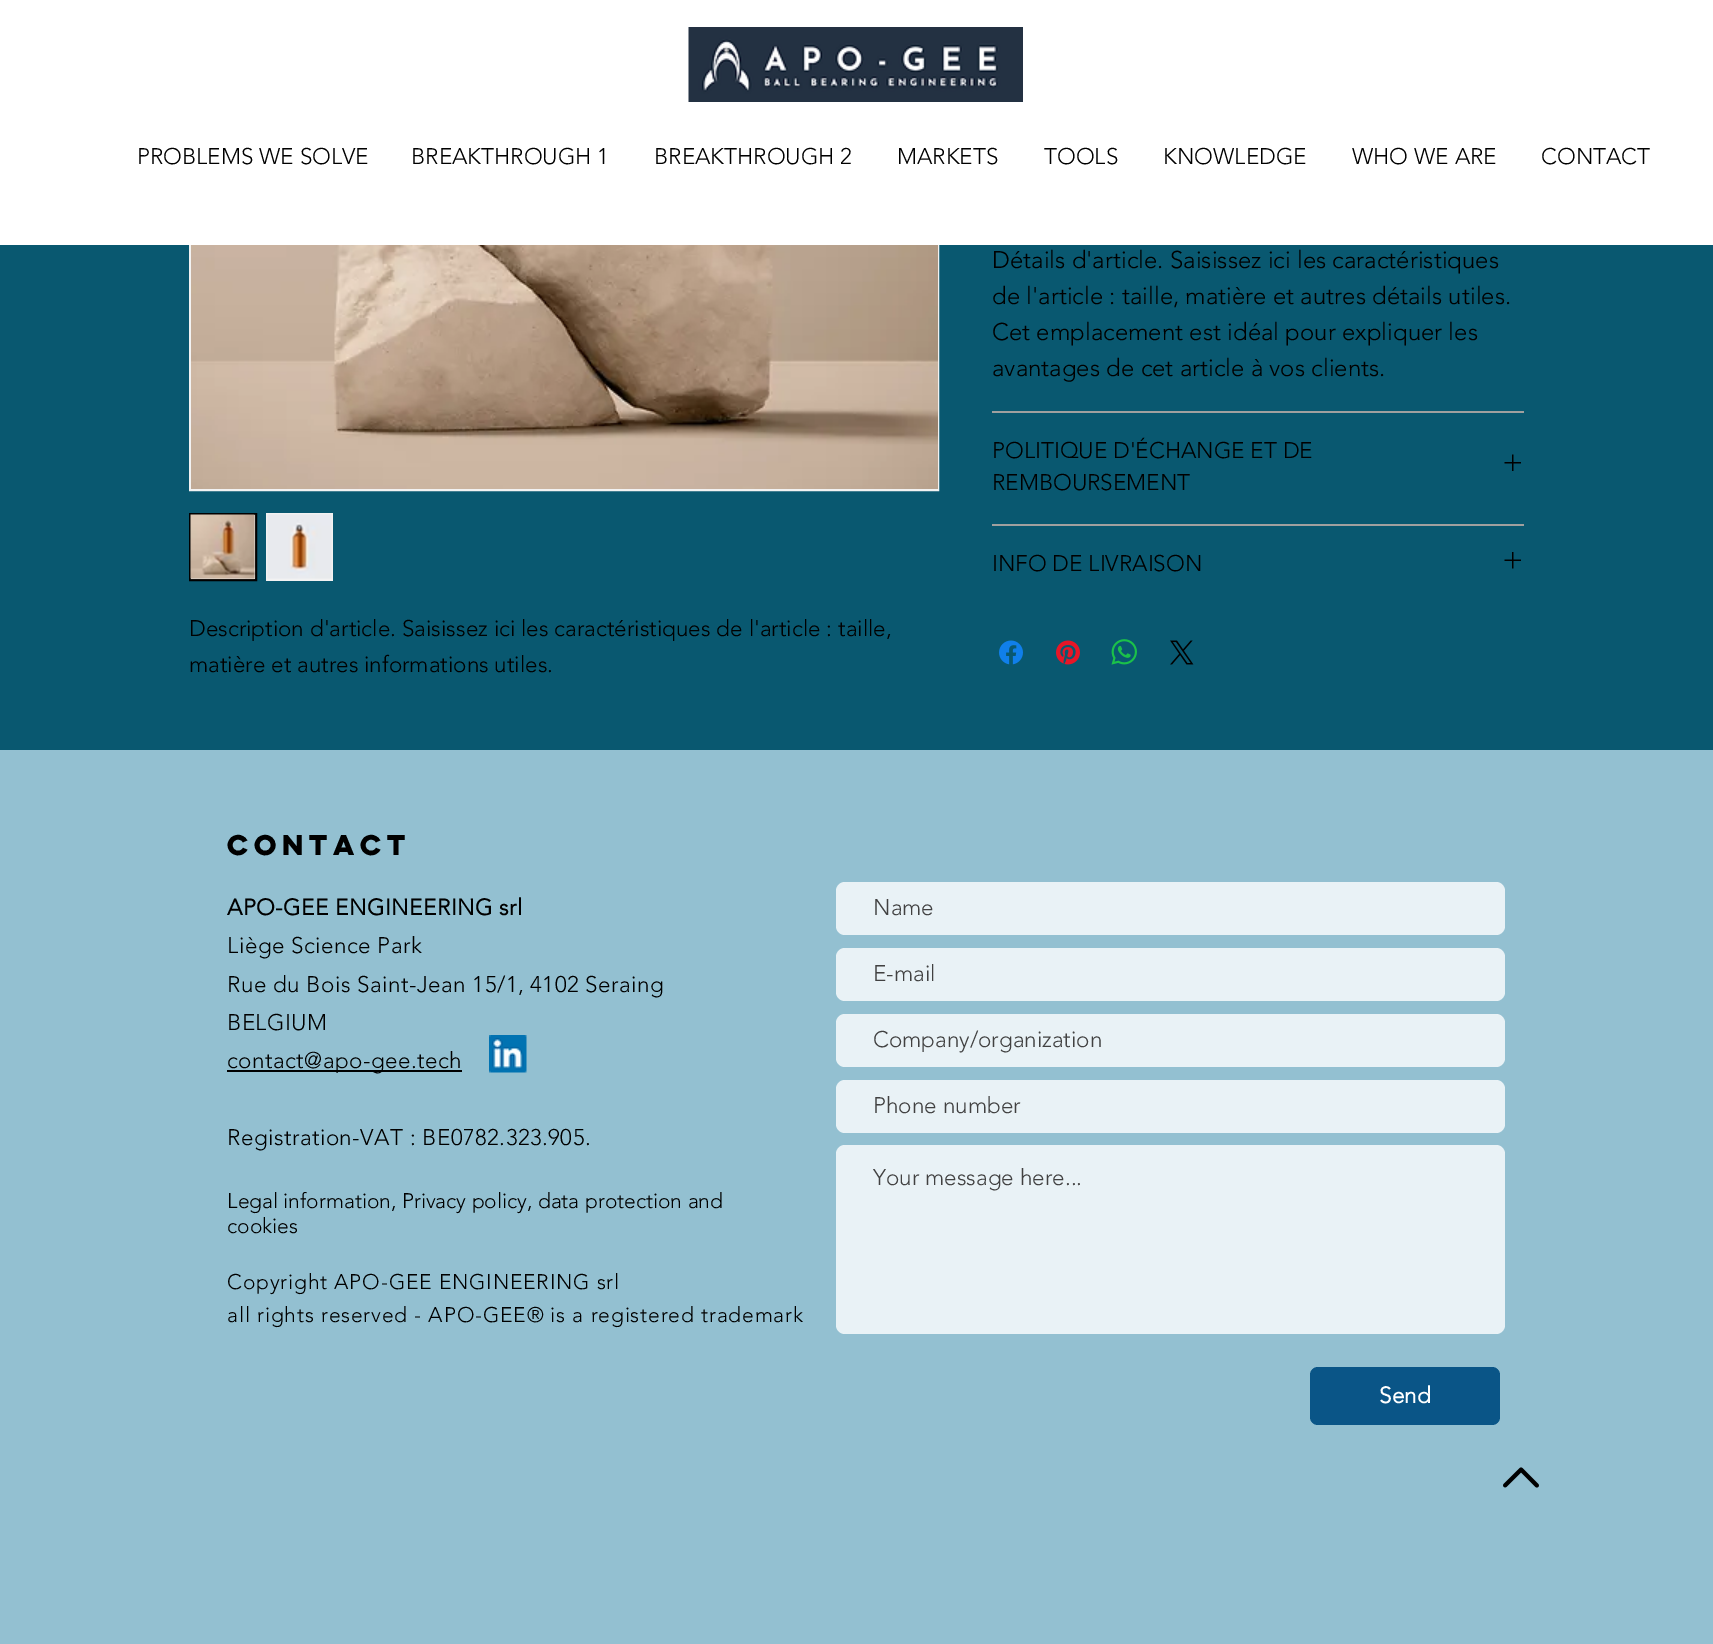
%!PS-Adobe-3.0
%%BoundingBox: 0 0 1713 1644
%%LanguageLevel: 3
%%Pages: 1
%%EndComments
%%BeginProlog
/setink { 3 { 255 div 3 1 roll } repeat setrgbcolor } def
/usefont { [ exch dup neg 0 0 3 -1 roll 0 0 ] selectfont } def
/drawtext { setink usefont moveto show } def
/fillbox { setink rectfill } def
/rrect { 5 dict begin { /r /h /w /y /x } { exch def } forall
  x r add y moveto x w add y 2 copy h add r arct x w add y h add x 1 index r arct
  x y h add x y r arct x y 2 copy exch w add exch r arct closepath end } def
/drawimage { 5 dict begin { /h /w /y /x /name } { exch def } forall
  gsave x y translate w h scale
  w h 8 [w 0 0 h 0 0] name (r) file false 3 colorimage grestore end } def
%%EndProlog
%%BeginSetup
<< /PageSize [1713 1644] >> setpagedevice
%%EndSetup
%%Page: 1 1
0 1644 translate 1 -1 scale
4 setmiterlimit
0 0 1713 1644 9 88 112 fillbox
242 242 242 setink
2 setlinewidth
190 -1 748 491 rectstroke
0 0 1713 245 255 255 255 fillbox
(assets/img1.rgb) 688 27 335 75 drawimage
(PROBLEMS WE SOLVE) 137 164 /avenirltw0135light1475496-Light 22.5 0 0 0 drawtext
(BREAKTHROUGH 1) 411 164 /avenirltw0135light1475496-Light 22.5 0 0 0 drawtext
(BREAKTHROUGH 2) 654 164 /avenirltw0135light1475496-Light 22.5 0 0 0 drawtext
(MARKETS) 897 164 /avenirltw0135light1475496-Light 22.5 0 0 0 drawtext
(TOOLS) 1044 164 /avenirltw0135light1475496-Light 22.5 0 0 0 drawtext
(KNOWLEDGE) 1163 164 /avenirltw0135light1475496-Light 22.5 0 0 0 drawtext
(WHO WE ARE) 1352 164 /avenirltw0135light1475496-Light 22.5 0 0 0 drawtext
(CONTACT) 1541 164 /avenirltw0135light1475496-Light 22.5 0 0 0 drawtext
992 411 532 2 160 160 159 fillbox
(Détails d'article. Saisissez ici les caractéristiques) 992 268 /avenirltw0135light1475496-Light 24 0 0 0 drawtext
(de l'article : taille, matière et autres détails utiles.) 992 304 /avenirltw0135light1475496-Light 24 0 0 0 drawtext
(Cet emplacement est idéal pour expliquer les) 992 340 /avenirltw0135light1475496-Light 24 0 0 0 drawtext
(avantages de cet article à vos clients.) 992 376 /avenirltw0135light1475496-Light 24 0 0 0 drawtext
992 524 532 2 160 160 159 fillbox
(POLITIQUE D'ÉCHANGE ET DE) 992 458 /avenirltw0135light1475496-Light 22.5 0 0 0 drawtext
(REMBOURSEMENT) 992 490 /avenirltw0135light1475496-Light 22.5 0 0 0 drawtext
(assets/img2.rgb) 1504 454 17 17 drawimage
(INFO DE LIVRAISON) 992 571 /avenirltw0135light1475496-Light 22.5 0 0 0 drawtext
(assets/img3.rgb) 1504 552 17 17 drawimage
(assets/img4.rgb) 999 640 24 25 drawimage
(assets/img5.rgb) 1056 640 24 25 drawimage
(assets/img6.rgb) 1111 639 26 26 drawimage
(assets/img7.rgb) 1170 640 24 25 drawimage
(assets/img8.rgb) 191 245 747 244 drawimage
242 242 242 setink
190 514 moveto 256 514 lineto 256 580 lineto 190 580 lineto closepath gsave fill grestore
0 0 0 setink
stroke
(assets/img9.rgb) 190 514 66 66 drawimage
266 513 67 68 242 242 242 fillbox
(assets/img10.rgb) 267 514 65 65 drawimage
(Description d'article. Saisissez ici les caractéristiques de l'article : taille,) 189 636 /avenirltw0135light1475496-Light 22.5 0 0 0 drawtext
(matière et autres informations utiles.) 189 672 /avenirltw0135light1475496-Light 22.5 0 0 0 drawtext
0 750 1713 894 147 192 209 fillbox
(Contact) 227 855 /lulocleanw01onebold-Bold 25.5 0 0 0 drawtext
/avenirltw0135light1475496-Bold 22.5 usefont
227 915 moveto 0.45 0 (APO-GEE ENGINEERING srl) ashow
/avenirltw0135light1475496-Light 22.5 usefont
227 953 moveto 0.45 0 (Liège Science Park) ashow
227 992 moveto 0.45 0 (Rue du Bois Saint-Jean 15/1, 4102 Seraing) ashow
227 1030 moveto 0.45 0 (BELGIUM) ashow
227 1070 235 2 0 0 0 fillbox
227 1068 moveto 0.45 0 (contact@apo-gee.tech) ashow
227 1145 moveto 0.45 0 (Registration-VAT : BE0782.323.905.) ashow
233 242 246 setink
836 882 669 53 9 rrect fill
(Name) 873 915 /avenirltw0135light1475496-Light 22.5 65 65 65 drawtext
233 242 246 setink
836 948 669 53 9 rrect fill
(E-mail) 873 981 /avenirltw0135light1475496-Light 22.5 65 65 65 drawtext
233 242 246 setink
836 1014 669 53 9 rrect fill
(Company/organization) 873 1047 /avenirltw0135light1475496-Light 22.5 65 65 65 drawtext
233 242 246 setink
836 1080 669 53 9 rrect fill
(Phone number) 873 1113 /avenirltw0135light1475496-Light 22.5 65 65 65 drawtext
233 242 246 setink
836 1145 669 189 9 rrect fill
(Your message here...) 873 1185 /avenirltw0135light1475496-Light 22.5 65 65 65 drawtext
10 85 135 setink
1310 1367 190 58 8 rrect fill
(Send) 1379 1403 /avenirltw0135light1475496-Bold 22.5 255 255 255 drawtext
(assets/img11.rgb) 489 1035 38 38 drawimage
(Legal information, Privacy policy, data protection and) 227 1208 /avenirltw0135light1475496-Light 21 0 0 0 drawtext
(cookies) 227 1233 /avenirltw0135light1475496-Light 21 0 0 0 drawtext
227 1289 moveto 0.85 0 (Copyright APO-GEE ENGINEERING srl) ashow
227 1322 moveto 0.85 0 (all rights reserved - APO-GEE® is a registered trademark) ashow
(assets/img12.rgb) 1503 1467 36 21 drawimage
showpage
%%EOF
